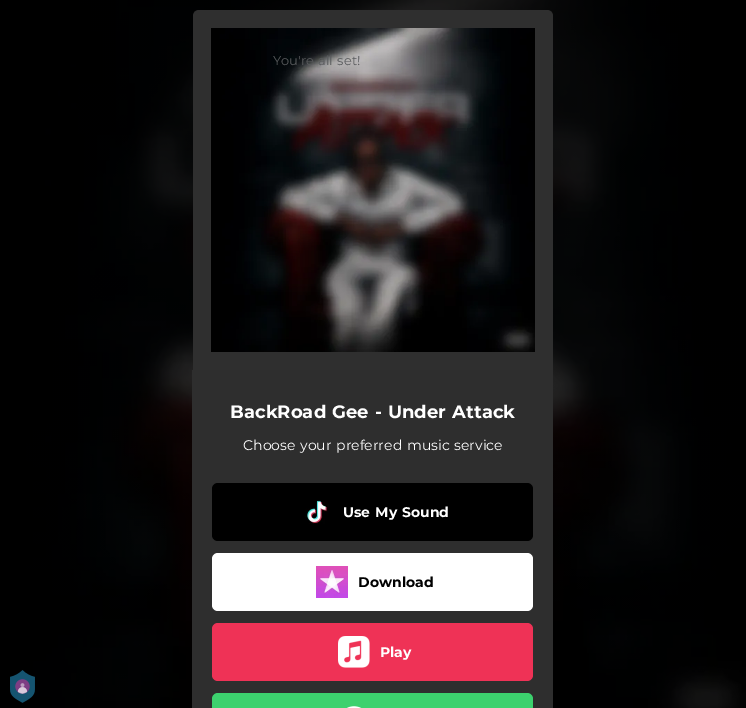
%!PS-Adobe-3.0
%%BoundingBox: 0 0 746 708
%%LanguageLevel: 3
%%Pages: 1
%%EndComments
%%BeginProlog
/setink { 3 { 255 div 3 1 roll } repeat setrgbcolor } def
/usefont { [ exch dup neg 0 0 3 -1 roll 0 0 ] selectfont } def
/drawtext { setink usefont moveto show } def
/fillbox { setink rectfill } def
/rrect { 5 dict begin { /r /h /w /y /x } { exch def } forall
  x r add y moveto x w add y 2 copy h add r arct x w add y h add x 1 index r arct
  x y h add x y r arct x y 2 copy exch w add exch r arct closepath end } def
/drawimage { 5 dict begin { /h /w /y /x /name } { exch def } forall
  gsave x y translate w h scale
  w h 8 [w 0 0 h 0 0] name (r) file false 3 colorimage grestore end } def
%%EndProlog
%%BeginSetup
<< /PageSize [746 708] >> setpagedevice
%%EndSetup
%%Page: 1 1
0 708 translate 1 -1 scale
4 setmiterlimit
0 0 746 708 255 255 255 fillbox
(assets/img1.rgb) 0 0 746 708 drawimage
47 47 47 setink
199 10 moveto 547 10 lineto 550.5 10 553 12.5 553 16 curveto 553 370 lineto 193 370 lineto 193 16 lineto 193 12.5 195.5 10 199 10 curveto closepath fill
(assets/img2.rgb) 211 28 324 324 drawimage
/Montserrat-Regular 13 usefont
89 91 93 setink
273 65 moveto 1 0 32 (You're all set!) widthshow
192 370 361 338 46 46 46 fillbox
/Montserrat-Bold 18 usefont
255 255 255 setink
230 418 moveto 1 0 32 (BackRoad Gee - Under Attack) widthshow
/Montserrat-Regular 14 usefont
243 450 moveto 1 0 32 (Choose your preferred music service) widthshow
0 0 0 setink
212 483 321 58 6 rrect fill
(assets/img3.rgb) 305 500 24 24 drawimage
/Montserrat-Bold 14 usefont
255 255 255 setink
343 517 moveto 1 0 32 (Use My Sound) widthshow
212 553 321 58 6 rrect fill
(assets/img4.rgb) 316 566 32 32 drawimage
(Download) 358 587 /Montserrat-Bold 14 0 0 0 drawtext
239 50 86 setink
212 623 321 58 6 rrect fill
(assets/img5.rgb) 338 636 32 32 drawimage
(Play) 380 657 /Montserrat-Bold 14 255 255 255 drawtext
60 209 110 setink
212 693 321 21 6 rrect fill
(assets/img6.rgb) 347 706 15 2 drawimage
(assets/img7.rgb) 10 670 25 33 drawimage
showpage
%%EOF
